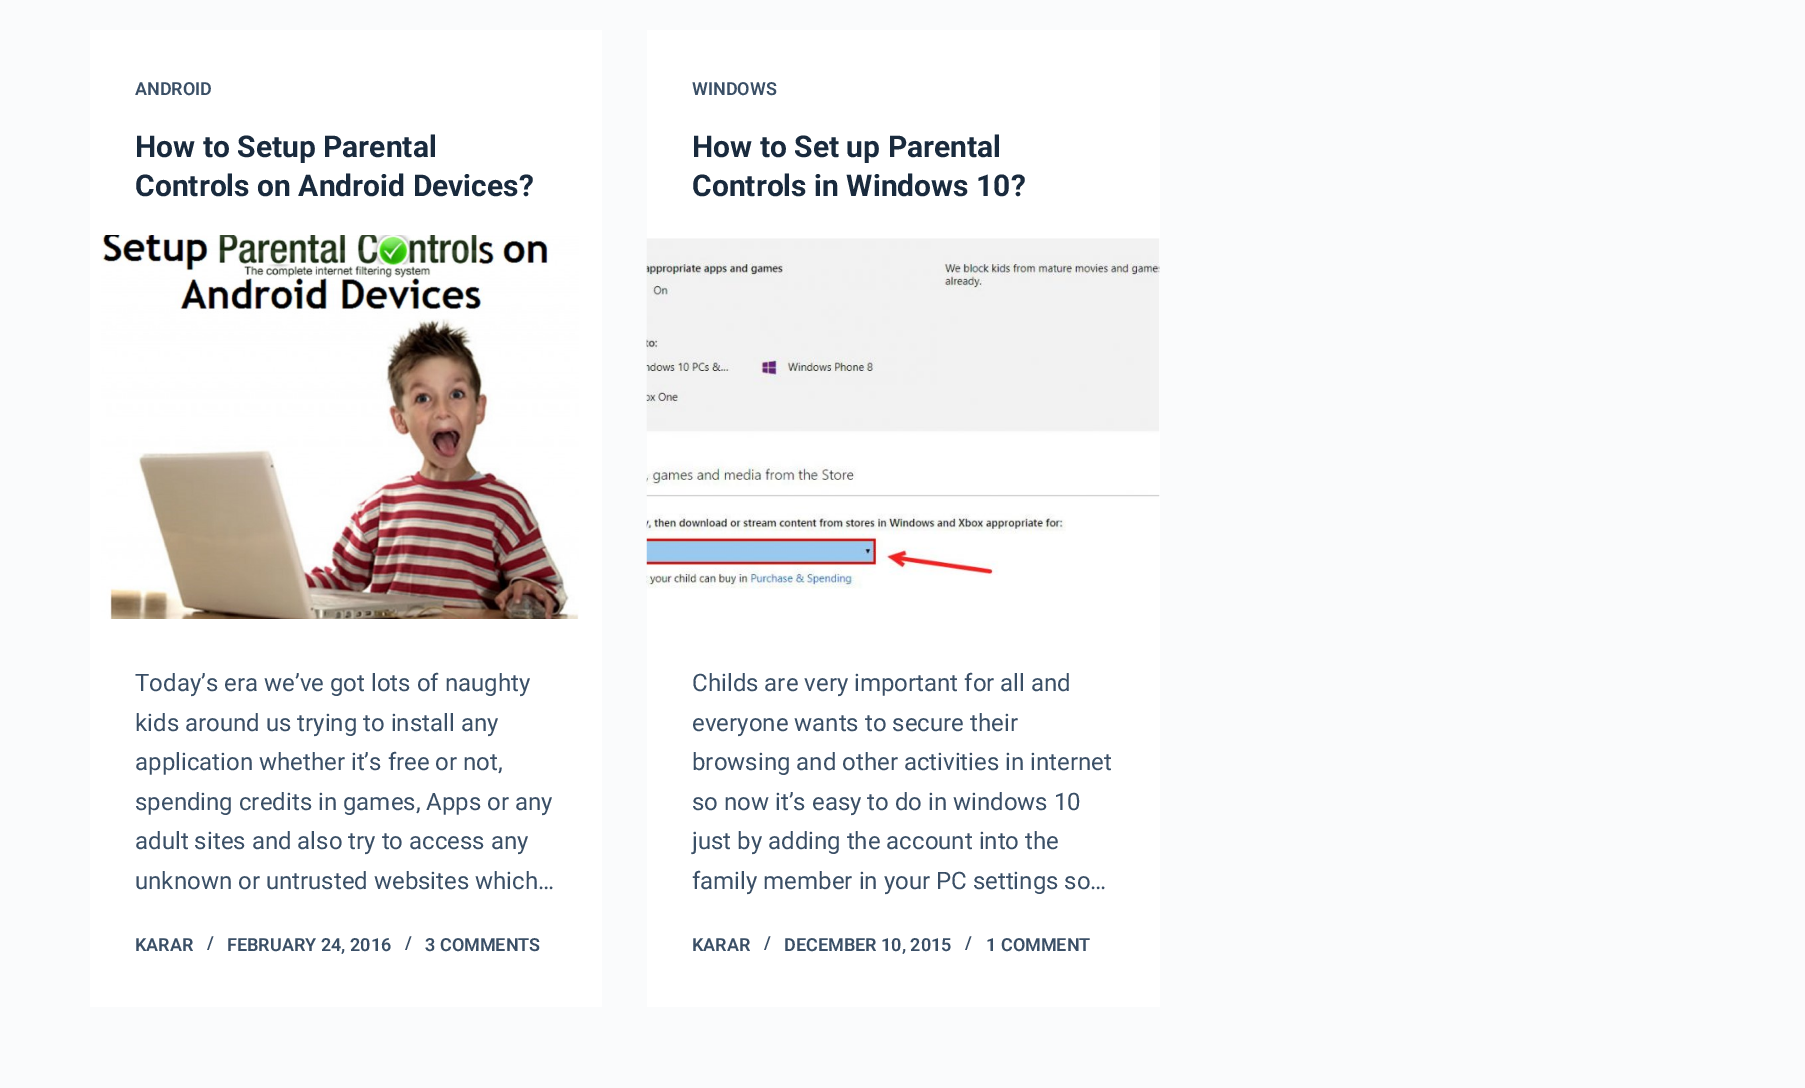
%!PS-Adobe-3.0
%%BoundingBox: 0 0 1805 1088
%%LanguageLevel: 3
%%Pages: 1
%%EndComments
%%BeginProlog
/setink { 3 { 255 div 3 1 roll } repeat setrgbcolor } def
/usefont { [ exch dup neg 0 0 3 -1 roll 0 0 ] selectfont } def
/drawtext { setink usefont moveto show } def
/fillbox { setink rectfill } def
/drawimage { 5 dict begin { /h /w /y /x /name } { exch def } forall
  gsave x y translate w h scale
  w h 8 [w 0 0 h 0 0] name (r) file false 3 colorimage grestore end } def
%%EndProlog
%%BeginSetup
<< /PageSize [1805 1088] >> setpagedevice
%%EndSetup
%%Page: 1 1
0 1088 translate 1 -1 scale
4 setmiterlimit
0 0 1805 1088 250 251 252 fillbox
90 30 512 977 255 255 255 fillbox
(ANDROID) 135 95 /Roboto-SemiBold 18 58 79 102 drawtext
(How to Setup Parental) 135 157 /Roboto-Bold 30 25 42 61 drawtext
(Controls on Android Devices?) 135 196 /Roboto-Bold 30 25 42 61 drawtext
(assets/img1.rgb) 101 235 478 384 drawimage
(Today’s era we’ve got lots of naughty) 135 691 /Roboto-Regular 24 58 79 102 drawtext
(kids around us trying to install any) 135 731 /Roboto-Regular 24 58 79 102 drawtext
(application whether it’s free or not,) 135 770 /Roboto-Regular 24 58 79 102 drawtext
(spending credits in games, Apps or any) 135 810 /Roboto-Regular 24 58 79 102 drawtext
(adult sites and also try to access any) 135 849 /Roboto-Regular 24 58 79 102 drawtext
(unknown or untrusted websites which…) 135 889 /Roboto-Regular 24 58 79 102 drawtext
(KARAR) 135 951 /Roboto-SemiBold 18 58 79 102 drawtext
(/) 207 949 /Roboto-SemiBold 18 58 79 102 drawtext
(FEBRUARY 24, 2016) 227 951 /Roboto-SemiBold 18 58 79 102 drawtext
(/) 405 949 /Roboto-SemiBold 18 58 79 102 drawtext
(3 COMMENTS) 425 951 /Roboto-SemiBold 18 58 79 102 drawtext
647 30 513 977 255 255 255 fillbox
(WINDOWS) 692 95 /Roboto-SemiBold 18 58 79 102 drawtext
(How to Set up Parental) 692 157 /Roboto-Bold 30 25 42 61 drawtext
(Controls in Windows 10?) 692 196 /Roboto-Bold 30 25 42 61 drawtext
(assets/img2.rgb) 646 238 514 351 drawimage
(Childs are very important for all and) 692 691 /Roboto-Regular 24 58 79 102 drawtext
(everyone wants to secure their) 692 731 /Roboto-Regular 24 58 79 102 drawtext
(browsing and other activities in internet) 692 770 /Roboto-Regular 24 58 79 102 drawtext
(so now it’s easy to do in windows 10) 692 810 /Roboto-Regular 24 58 79 102 drawtext
(just by adding the account into the) 692 849 /Roboto-Regular 24 58 79 102 drawtext
(family member in your PC settings so…) 692 889 /Roboto-Regular 24 58 79 102 drawtext
(KARAR) 692 951 /Roboto-SemiBold 18 58 79 102 drawtext
(/) 764 949 /Roboto-SemiBold 18 58 79 102 drawtext
(DECEMBER 10, 2015) 784 951 /Roboto-SemiBold 18 58 79 102 drawtext
(/) 965 949 /Roboto-SemiBold 18 58 79 102 drawtext
(1 COMMENT) 986 951 /Roboto-SemiBold 18 58 79 102 drawtext
showpage
%%EOF
